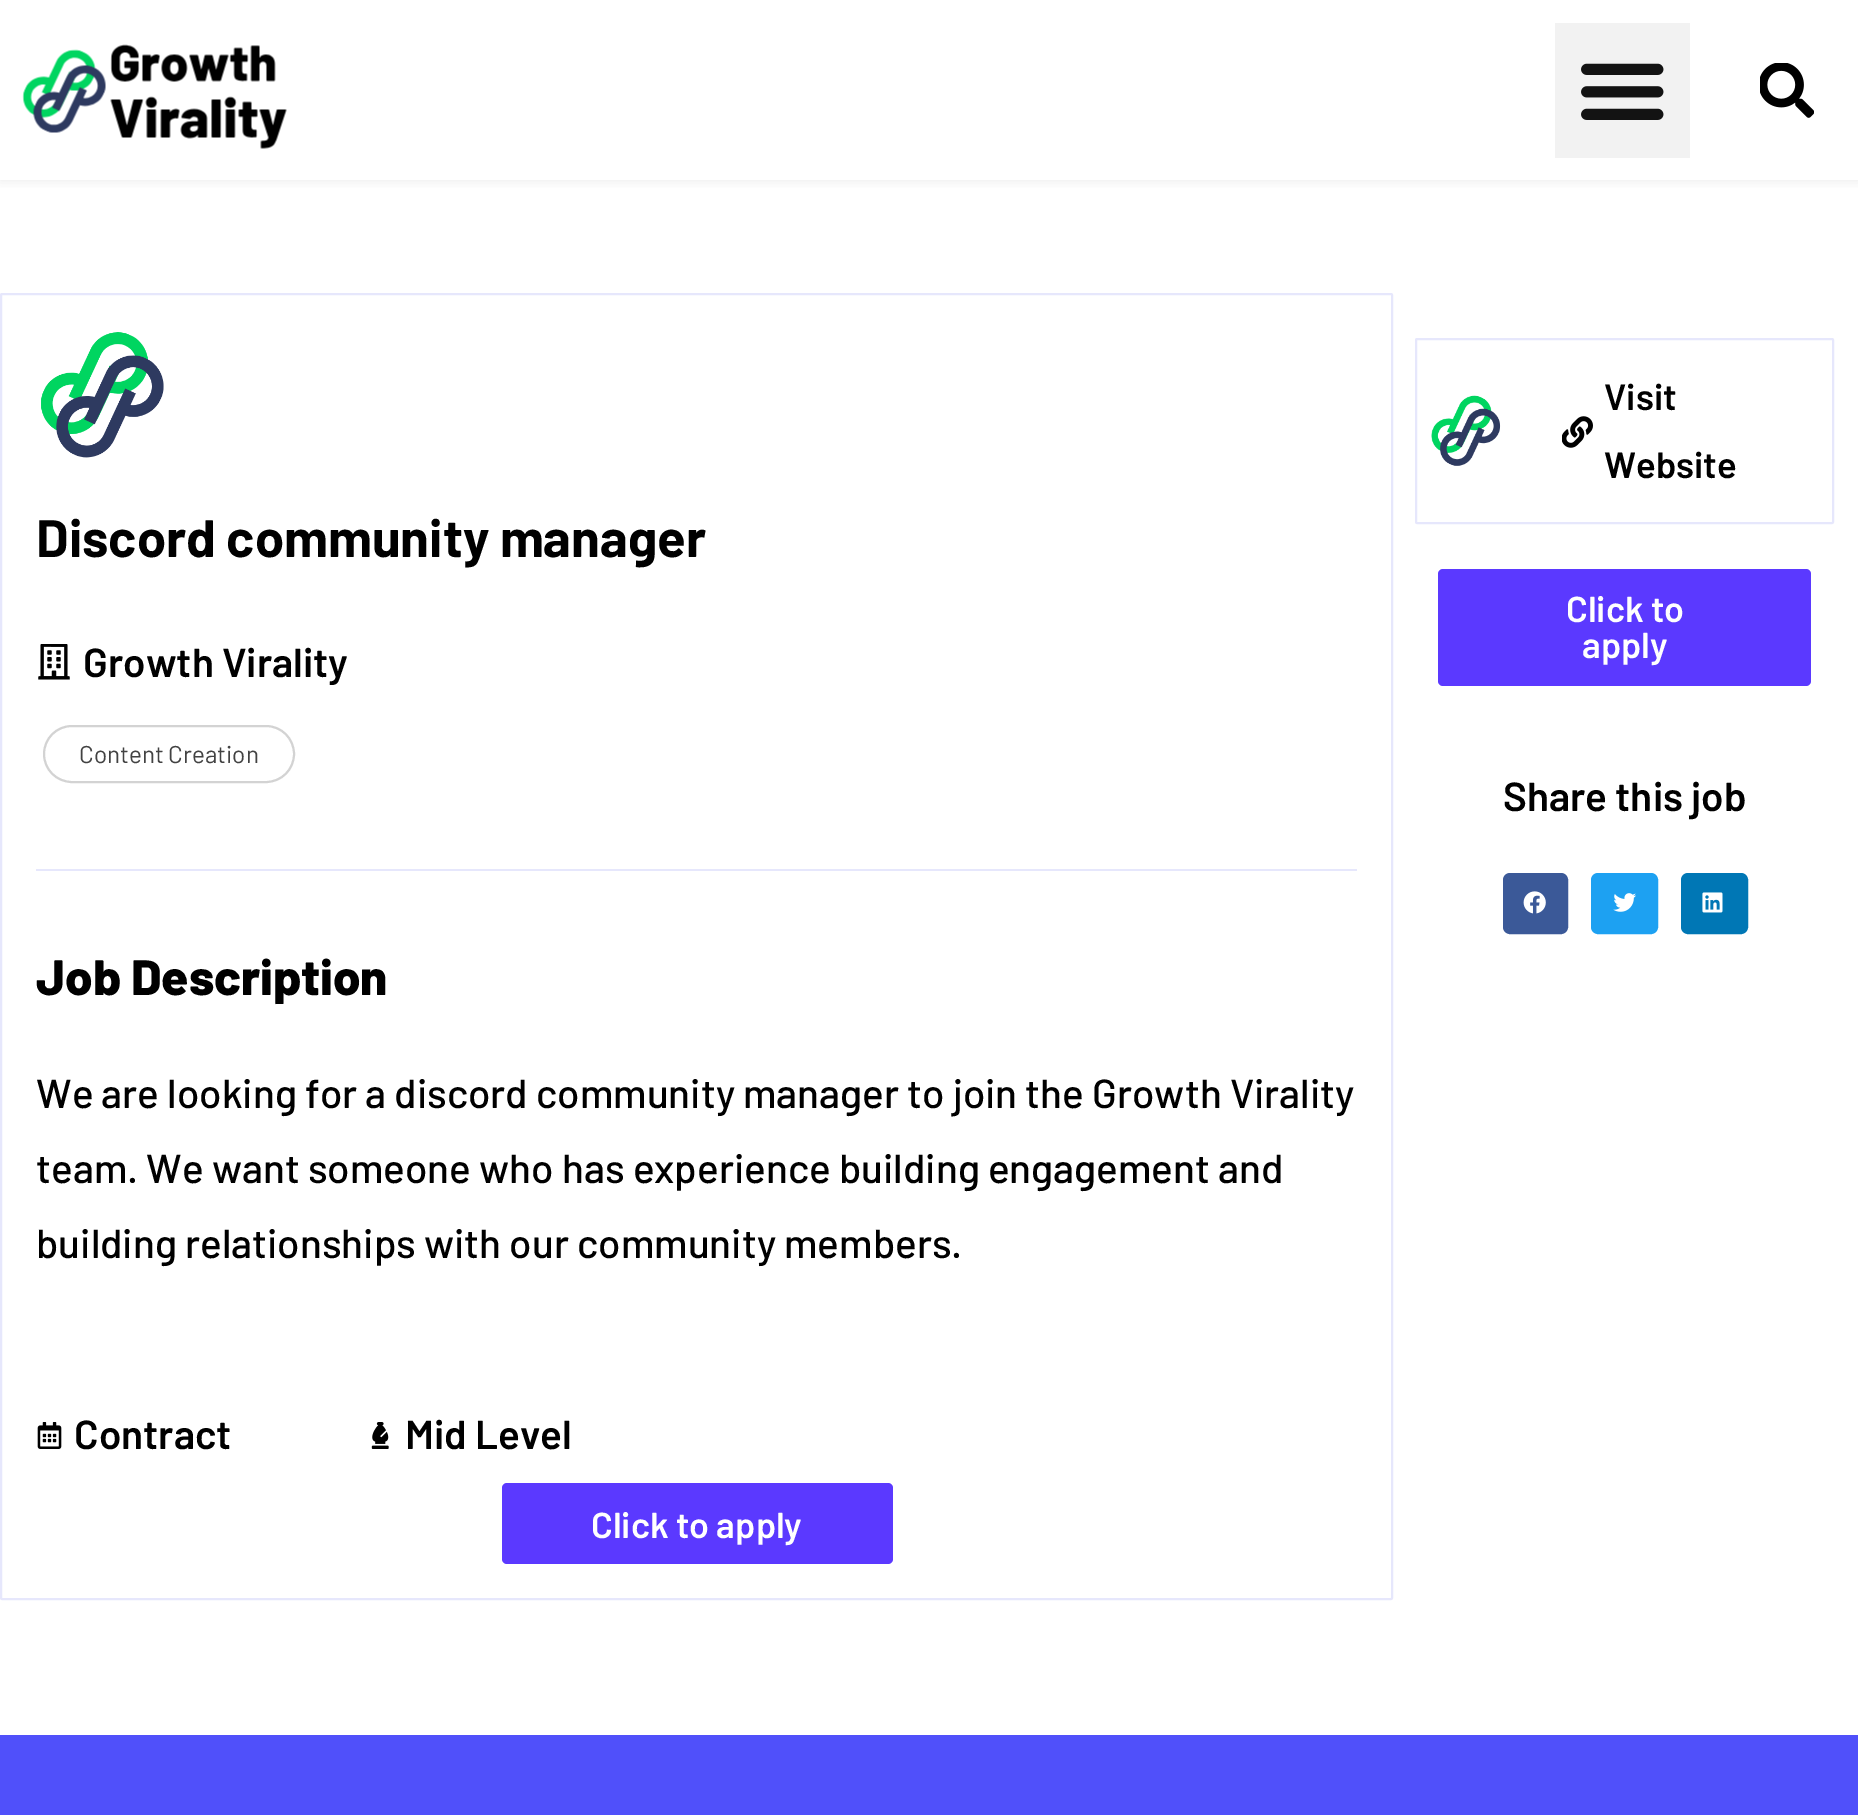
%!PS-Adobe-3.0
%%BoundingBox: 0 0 1858 1815
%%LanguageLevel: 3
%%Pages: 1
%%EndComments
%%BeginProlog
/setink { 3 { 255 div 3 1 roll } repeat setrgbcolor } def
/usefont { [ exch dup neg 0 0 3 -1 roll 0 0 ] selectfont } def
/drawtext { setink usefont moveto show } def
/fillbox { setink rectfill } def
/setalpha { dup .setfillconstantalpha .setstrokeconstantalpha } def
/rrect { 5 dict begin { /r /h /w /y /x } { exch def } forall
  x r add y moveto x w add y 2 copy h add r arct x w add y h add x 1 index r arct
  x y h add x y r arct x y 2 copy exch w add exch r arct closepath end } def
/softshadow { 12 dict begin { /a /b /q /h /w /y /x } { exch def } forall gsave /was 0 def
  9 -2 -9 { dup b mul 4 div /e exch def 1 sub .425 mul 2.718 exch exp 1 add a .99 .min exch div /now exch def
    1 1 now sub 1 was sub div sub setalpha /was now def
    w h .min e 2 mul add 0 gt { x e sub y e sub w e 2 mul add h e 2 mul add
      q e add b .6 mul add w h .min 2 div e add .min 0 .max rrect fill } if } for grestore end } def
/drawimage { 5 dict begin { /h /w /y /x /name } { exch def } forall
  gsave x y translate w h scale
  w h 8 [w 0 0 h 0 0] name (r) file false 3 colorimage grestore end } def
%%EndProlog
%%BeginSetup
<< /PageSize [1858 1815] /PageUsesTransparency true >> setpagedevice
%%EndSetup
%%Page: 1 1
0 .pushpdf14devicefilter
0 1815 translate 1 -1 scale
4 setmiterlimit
0 0 1858 1815 255 255 255 fillbox
gsave
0 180 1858 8 rectclip
185 185 185 setink
0 0 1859 180 0 5.5 0.31 softshadow
grestore
(assets/img1.rgb) 22 44 265 105 drawimage
1555 23 135 135 242 242 242 fillbox
(assets/img2.rgb) 1581 63 83 57 drawimage
(assets/img3.rgb) 1760 63 54 55 drawimage
230 231 252 setink
2 setlinewidth
1 294 1391 1305 1 rrect stroke
(assets/img4.rgb) 41 332 123 126 drawimage
(Discord community manager) 36 557 /Barlow-Bold 52.6 0 0 0 drawtext
(assets/img5.rgb) 38 644 32 36 drawimage
(Growth Virality) 83 677 /Barlow-SemiBold 40.5 0 0 0 drawtext
211 211 211 setink
44 726 250 56 28 rrect stroke
(Content Creation) 79 763 /Barlow-Regular 24.25 66 66 66 drawtext
36 869 1321 2 230 231 252 fillbox
(Job Description) 36 995 /Barlow-ExtraBold 49.5 0 0 0 drawtext
(We are looking for a discord community manager to join the Growth Virality) 36 1108 /Barlow-Medium 40.5 0 0 0 drawtext
(team. We want someone who has experience building engagement and) 36 1183 /Barlow-Medium 40.5 0 0 0 drawtext
(building relationships with our community members.) 36 1258 /Barlow-Medium 40.5 0 0 0 drawtext
(assets/img6.rgb) 37 1422 25 27 drawimage
(Contract) 74 1449 /Barlow-SemiBold 40.5 0 0 0 drawtext
(assets/img7.rgb) 371 1422 18 27 drawimage
(Mid Level) 405 1449 /Barlow-SemiBold 40.5 0 0 0 drawtext
91 57 255 setink
502 1483 391 81 5 rrect fill
(Click to apply) 591 1538 /Barlow-SemiBold 36 255 255 255 drawtext
230 231 252 setink
1416 339 417 184 1 rrect stroke
(assets/img8.rgb) 1431 395 70 71 drawimage
(assets/img9.rgb) 1562 416 31 32 drawimage
(Visit) 1604 410 /Barlow-SemiBold 36.5 0 0 0 drawtext
(Website) 1604 478 /Barlow-SemiBold 36.5 0 0 0 drawtext
91 57 255 setink
1438 569 373 117 5 rrect fill
(Click to) 1566 622 /Barlow-SemiBold 36 255 255 255 drawtext
(apply) 1582 658 /Barlow-SemiBold 36 255 255 255 drawtext
(Share this job) 1503 811 /Barlow-SemiBold 40.5 0 0 0 drawtext
59 89 152 setink
5 setlinewidth
1505.5 875.5 60 56 4.5 rrect stroke
1508 878 56 51 2 rrect fill
(assets/img10.rgb) 1523 891 23 23 drawimage
29 161 242 setink
1593.5 875.5 62 56 4.5 rrect stroke
1595 878 59 51 2 rrect fill
(assets/img11.rgb) 1613 893 23 19 drawimage
0 119 181 setink
1683.5 875.5 62 56 4.5 rrect stroke
1685 878 59 51 2 rrect fill
(assets/img12.rgb) 1702 892 21 21 drawimage
0 1735 1858 80 80 80 250 fillbox
.poppdf14devicefilter showpage
%%EOF
